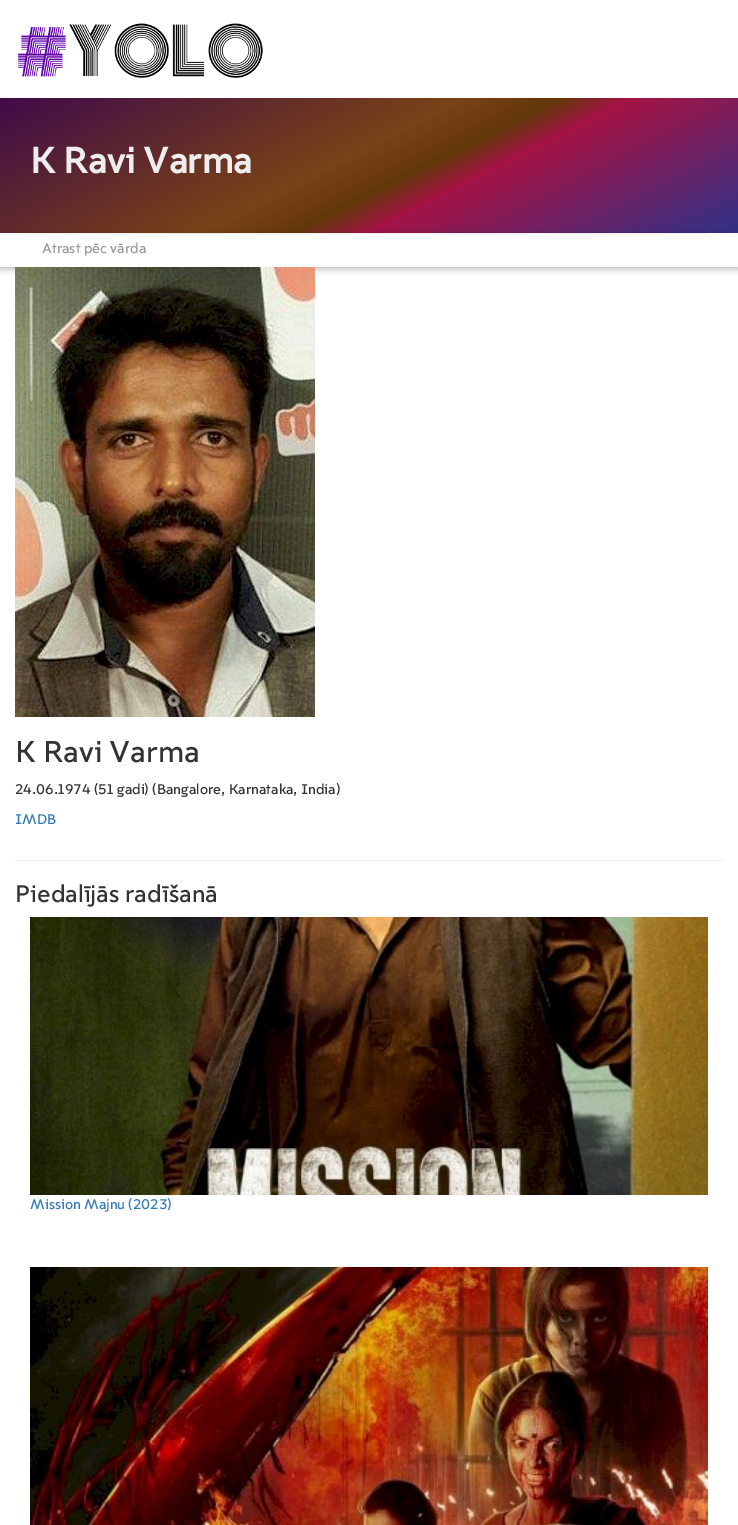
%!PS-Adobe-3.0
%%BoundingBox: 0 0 738 1525
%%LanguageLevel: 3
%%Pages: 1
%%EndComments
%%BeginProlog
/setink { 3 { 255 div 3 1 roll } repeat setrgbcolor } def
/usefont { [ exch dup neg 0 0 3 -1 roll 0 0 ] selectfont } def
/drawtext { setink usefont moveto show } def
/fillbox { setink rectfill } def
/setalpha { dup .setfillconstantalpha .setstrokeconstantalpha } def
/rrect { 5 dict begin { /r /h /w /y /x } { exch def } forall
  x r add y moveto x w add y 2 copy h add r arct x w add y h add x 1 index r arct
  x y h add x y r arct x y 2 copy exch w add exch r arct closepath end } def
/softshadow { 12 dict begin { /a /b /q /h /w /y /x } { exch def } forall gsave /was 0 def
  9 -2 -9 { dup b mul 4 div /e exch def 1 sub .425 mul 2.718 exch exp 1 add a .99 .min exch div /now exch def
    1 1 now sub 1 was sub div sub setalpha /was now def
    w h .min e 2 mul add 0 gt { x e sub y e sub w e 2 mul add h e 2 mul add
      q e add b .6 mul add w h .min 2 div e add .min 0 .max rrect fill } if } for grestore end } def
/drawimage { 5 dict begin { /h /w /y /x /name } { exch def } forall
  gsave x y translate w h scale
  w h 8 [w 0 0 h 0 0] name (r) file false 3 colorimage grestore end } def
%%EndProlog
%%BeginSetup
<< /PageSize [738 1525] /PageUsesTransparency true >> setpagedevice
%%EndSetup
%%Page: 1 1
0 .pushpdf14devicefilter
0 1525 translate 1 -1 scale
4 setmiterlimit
0 0 738 1525 255 255 255 fillbox
(assets/img1.rgb) 18 23 245 55 drawimage
gsave 0 98 moveto 738 98 lineto 738 233 lineto 0 233 lineto closepath clip newpath
<< /ShadingType 2 /ColorSpace /DeviceRGB /Coords [266 -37 472 368] /Extend [true true] /Function << /FunctionType 3 /Domain [0 1] /Functions [<< /FunctionType 2 /Domain [0 1] /C0 [0.251 0.043 0.286] /C1 [0.478 0.259 0.09] /N 1 >> << /FunctionType 2 /Domain [0 1] /C0 [0.478 0.259 0.09] /C1 [0.388 0.216 0.043] /N 1 >> << /FunctionType 2 /Domain [0 1] /C0 [0.388 0.216 0.043] /C1 [0.647 0.075 0.267] /N 1 >> << /FunctionType 2 /Domain [0 1] /C0 [0.647 0.075 0.267] /C1 [0.188 0.192 0.537] /N 1 >>] /Bounds [0.46 0.56 0.63] /Encode [0 1 0 1 0 1 0 1] >> >> shfill grestore
(K Ravi Varma) 30 173 /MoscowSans-Bold 36 237 237 237 drawtext
gsave
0 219 moveto 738 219 lineto 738 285 lineto 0 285 lineto closepath 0 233 moveto 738 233 lineto 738 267 lineto 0 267 lineto closepath eoclip newpath
0 0 0 setink
0 235 738 34 0 5 0.12 softshadow
grestore
gsave
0 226 moveto 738 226 lineto 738 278 lineto 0 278 lineto closepath 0 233 moveto 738 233 lineto 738 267 lineto 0 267 lineto closepath eoclip newpath
0 0 0 setink
0 235 738 34 0 2.5 0.16 softshadow
grestore
30 233 678 1 236 236 236 fillbox
(Atrast pēc vārda) 42 253 /MoscowSans-Regular 14 153 153 153 drawtext
(assets/img2.rgb) 15 267 300 450 drawimage
(K Ravi Varma) 15 762 /MoscowSans-Regular 30 51 51 51 drawtext
(24.06.1974 \(51 gadi\) \(Bangalore, Karnataka, India\)) 15 794 /MoscowSans-Regular 14 51 51 51 drawtext
(IMDB) 15 824 /MoscowSans-Regular 14 51 122 183 drawtext
15 860 708 1 238 238 238 fillbox
(Piedalījās radīšanā) 15 902 /MoscowSans-Regular 24 51 51 51 drawtext
(assets/img3.rgb) 30 917 678 278 drawimage
(Mission Majnu \(2023\)) 30 1209 /MoscowSans-Regular 14 51 122 183 drawtext
(assets/img4.rgb) 30 1267 678 258 drawimage
.poppdf14devicefilter showpage
%%EOF
